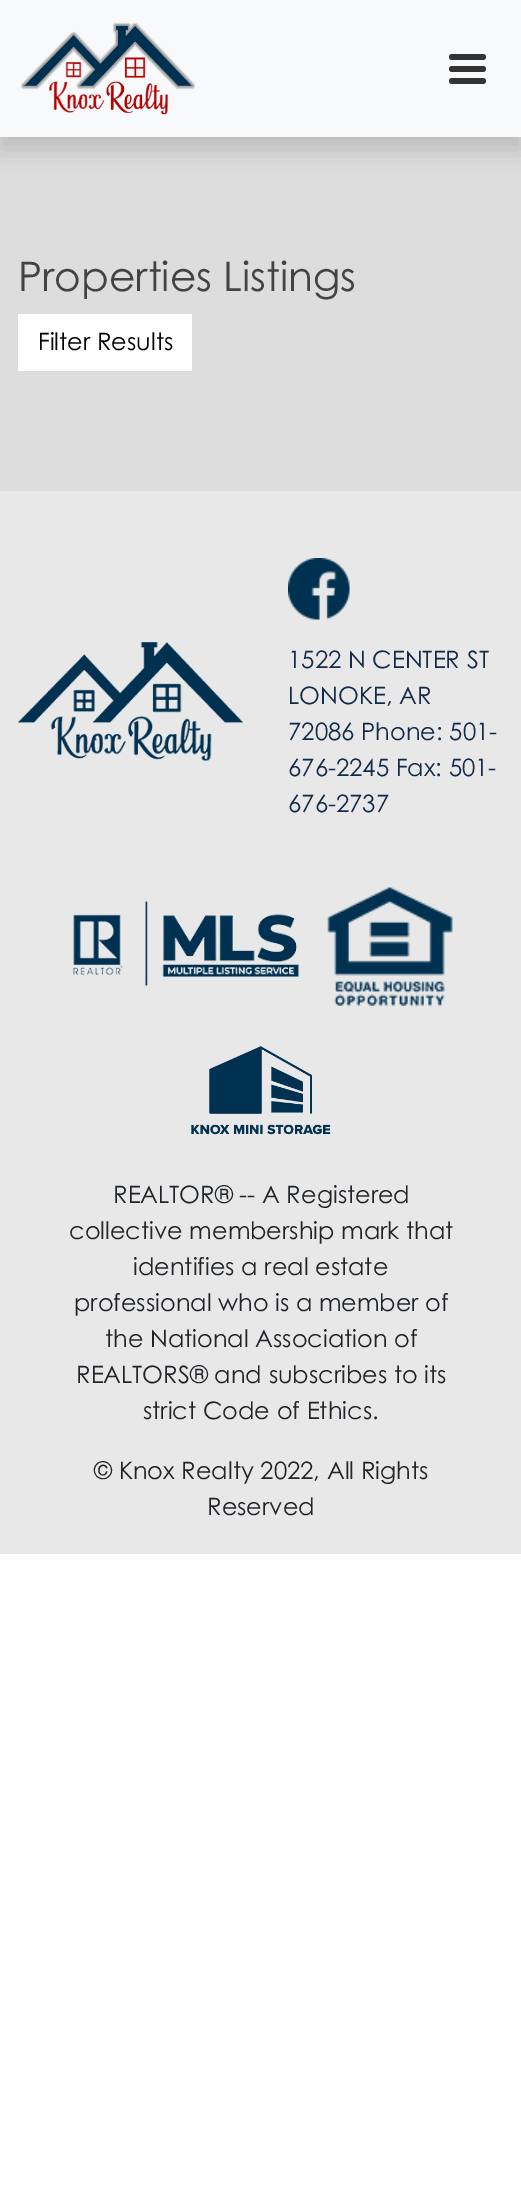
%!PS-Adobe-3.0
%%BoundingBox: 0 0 521 2191
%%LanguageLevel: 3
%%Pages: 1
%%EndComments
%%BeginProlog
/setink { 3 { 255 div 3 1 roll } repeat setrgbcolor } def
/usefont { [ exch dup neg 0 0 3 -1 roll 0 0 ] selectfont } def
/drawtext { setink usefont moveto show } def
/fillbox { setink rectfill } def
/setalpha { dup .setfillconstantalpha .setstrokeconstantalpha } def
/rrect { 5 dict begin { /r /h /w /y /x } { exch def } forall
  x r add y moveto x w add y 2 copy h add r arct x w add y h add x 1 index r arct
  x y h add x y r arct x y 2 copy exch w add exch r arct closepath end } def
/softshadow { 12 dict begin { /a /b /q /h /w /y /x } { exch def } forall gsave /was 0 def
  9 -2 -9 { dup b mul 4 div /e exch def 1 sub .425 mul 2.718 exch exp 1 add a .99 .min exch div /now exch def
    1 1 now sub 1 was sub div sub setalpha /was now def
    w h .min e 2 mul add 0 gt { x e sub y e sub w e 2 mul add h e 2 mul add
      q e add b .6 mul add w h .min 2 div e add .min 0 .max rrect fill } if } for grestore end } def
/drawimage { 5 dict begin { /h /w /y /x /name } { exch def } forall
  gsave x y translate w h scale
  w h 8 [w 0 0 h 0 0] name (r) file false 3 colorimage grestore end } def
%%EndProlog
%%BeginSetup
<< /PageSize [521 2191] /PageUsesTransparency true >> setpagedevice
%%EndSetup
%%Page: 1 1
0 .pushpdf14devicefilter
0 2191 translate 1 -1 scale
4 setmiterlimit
0 0 521 2191 255 255 255 fillbox
0 137 521 354 221 221 221 fillbox
0 0 0 setink
0 12 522 137 0 12 0.15 softshadow
0 0 521 137 248 249 250 fillbox
(assets/img1.rgb) 21 22 174 93 drawimage
51 51 51 setink
449 54 37 6 3 rrect fill
449 66 37 6 3 rrect fill
449 78 37 6 3 rrect fill
(Properties Listings) 18 291 /CenturyGothic-Regular 40.75 67 66 68 drawtext
18 314 174 57 255 255 255 fillbox
(Filter Results) 38 350 /CenturyGothic-Regular 24 0 0 0 drawtext
0 491 521 1063 232 232 232 fillbox
(assets/img2.rgb) 18 642 225 119 drawimage
(assets/img3.rgb) 288 558 62 62 drawimage
(1522 N CENTER ST) 288 668 /CenturyGothic-Regular 24 19 42 72 drawtext
(LONOKE, AR) 288 704 /CenturyGothic-Regular 24 19 42 72 drawtext
(72086 Phone: 501-) 288 740 /CenturyGothic-Regular 24 19 42 72 drawtext
(676-2245 Fax: 501-) 288 776 /CenturyGothic-Regular 24 19 42 72 drawtext
(676-2737) 288 812 /CenturyGothic-Regular 24 19 42 72 drawtext
(assets/img4.rgb) 73 901 226 85 drawimage
(assets/img5.rgb) 327 887 126 120 drawimage
(assets/img6.rgb) 191 1046 140 89 drawimage
(REALTOR® -- A Registered) 113 1203 /CenturyGothic-Regular 24 33 37 41 drawtext
(collective membership mark that) 69 1239 /CenturyGothic-Regular 24 33 37 41 drawtext
(identifies a real estate) 133 1275 /CenturyGothic-Regular 24 33 37 41 drawtext
(professional who is a member of) 74 1311 /CenturyGothic-Regular 24 33 37 41 drawtext
(the National Association of) 105 1347 /CenturyGothic-Regular 24 33 37 41 drawtext
(REALTORS® and subscribes to its) 76 1383 /CenturyGothic-Regular 24 33 37 41 drawtext
(strict Code of Ethics.) 143 1419 /CenturyGothic-Regular 24 33 37 41 drawtext
(© Knox Realty 2022, All Rights) 94 1479 /CenturyGothic-Regular 24 33 37 41 drawtext
(Reserved) 207 1515 /CenturyGothic-Regular 24 33 37 41 drawtext
.poppdf14devicefilter showpage
%%EOF
